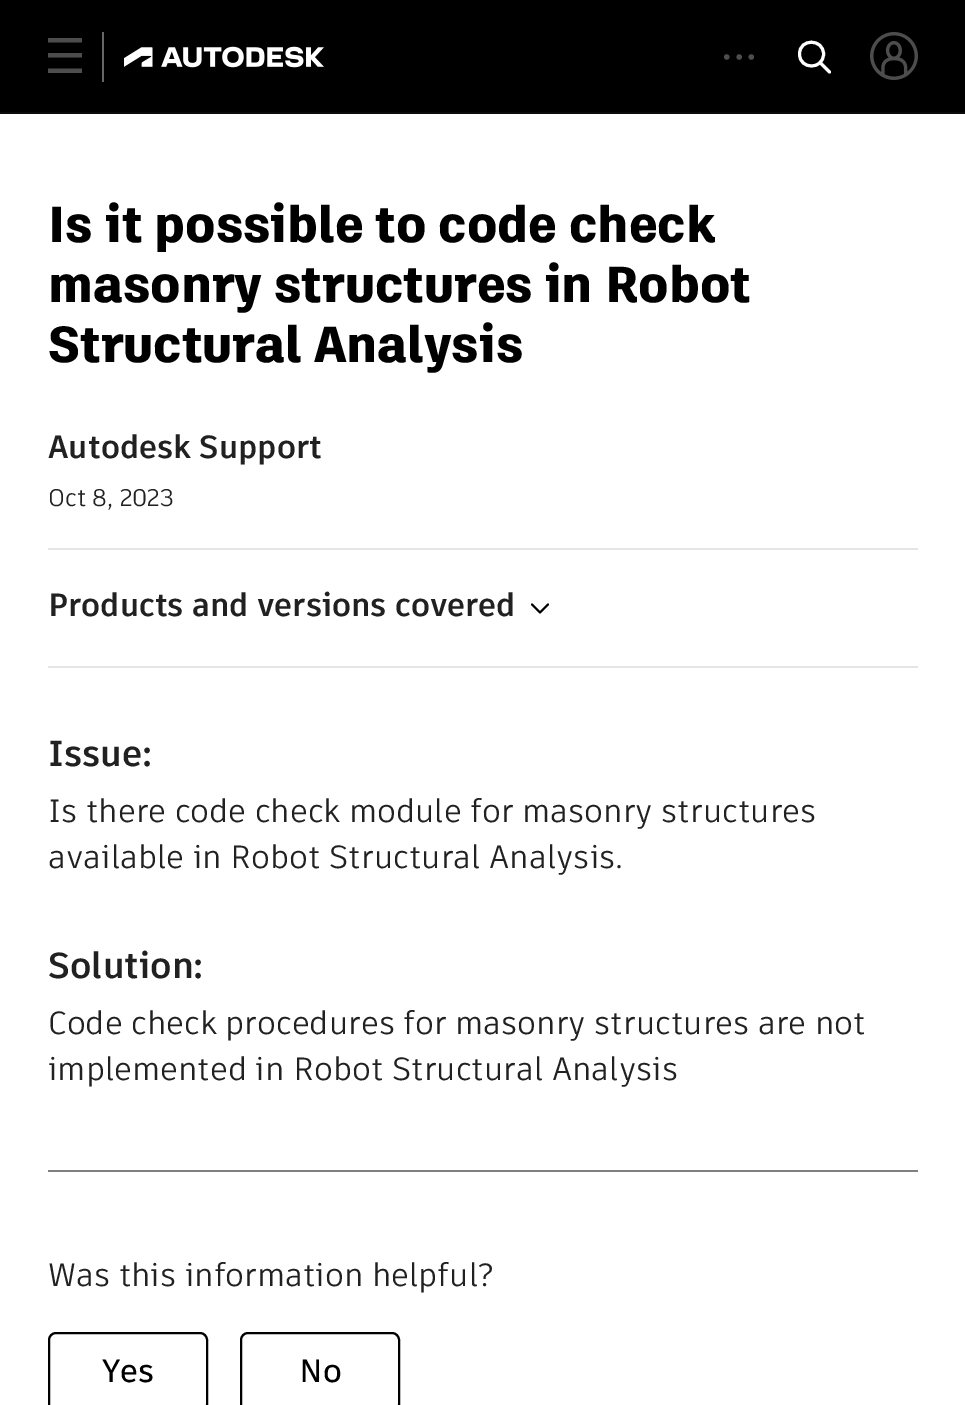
%!PS-Adobe-3.0
%%BoundingBox: 0 0 965 1405
%%LanguageLevel: 3
%%Pages: 1
%%EndComments
%%BeginProlog
/setink { 3 { 255 div 3 1 roll } repeat setrgbcolor } def
/usefont { [ exch dup neg 0 0 3 -1 roll 0 0 ] selectfont } def
/drawtext { setink usefont moveto show } def
/fillbox { setink rectfill } def
/disc { newpath 0 360 arc closepath } def
/rrect { 5 dict begin { /r /h /w /y /x } { exch def } forall
  x r add y moveto x w add y 2 copy h add r arct x w add y h add x 1 index r arct
  x y h add x y r arct x y 2 copy exch w add exch r arct closepath end } def
/drawimage { 5 dict begin { /h /w /y /x /name } { exch def } forall
  gsave x y translate w h scale
  w h 8 [w 0 0 h 0 0] name (r) file false 3 colorimage grestore end } def
%%EndProlog
%%BeginSetup
<< /PageSize [965 1405] >> setpagedevice
%%EndSetup
%%Page: 1 1
0 1405 translate 1 -1 scale
4 setmiterlimit
0 0 965 1405 255 255 255 fillbox
0 0 965 112 0 0 0 fillbox
0 112 965 2 10 10 10 fillbox
gsave
48 38 34 36 rectclip
77 77 77 setink
48 38 moveto 83 38 lineto 83 42.5 lineto 48 42.5 lineto closepath 48 53 moveto 83 53 lineto 83 57.5 lineto 48 57.5 lineto closepath 48 68.5 moveto 83 68.5 lineto 83 73 lineto 48 73 lineto closepath fill
grestore
102 32 2 50 102 102 102 fillbox
(assets/img1.rgb) 124 46 200 22 drawimage
77 77 77 setink
726.7 57 2.7 disc fill
739.2 57 2.7 disc fill
751.3 57 2.7 disc fill
255 255 255 setink
3 setlinewidth
1 setlinecap
820 62.5 moveto 829.5 72 lineto 823.5 54 moveto 823.5 70 799.5 70 799.5 54 curveto 799.5 38 823.5 38.5 823.5 54 curveto closepath stroke
(assets/img2.rgb) 870 32 48 48 drawimage
(Is it possible to code check) 48 242 /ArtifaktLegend-ExtraBold 50.25 0 0 0 drawtext
(masonry structures in Robot) 48 302 /ArtifaktLegend-ExtraBold 50.25 0 0 0 drawtext
(Structural Analysis) 48 362 /ArtifaktLegend-ExtraBold 50.25 0 0 0 drawtext
(Autodesk Support) 48 458 /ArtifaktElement-Bold 32 33 33 33 drawtext
(Oct 8, 2023) 48 506 /ArtifaktElement-Regular 24 33 33 33 drawtext
48 548 870 2 229 229 229 fillbox
(Products and versions covered) 48 616 /ArtifaktElement-Bold 32 33 33 33 drawtext
0 0 0 setink
2 setlinewidth
1 setlinejoin
548 604.5 moveto 540 612.5 lineto 532 604.5 lineto stroke
48 666 870 2 229 229 229 fillbox
(Issue:) 48 766 /ArtifaktElement-Bold 36 33 33 33 drawtext
(Is there code check module for masonry structures) 48 822 /ArtifaktElement-Regular 32 33 33 33 drawtext
(available in Robot Structural Analysis.) 48 868 /ArtifaktElement-Regular 32 33 33 33 drawtext
(Solution:) 48 978 /ArtifaktElement-Bold 36 33 33 33 drawtext
(Code check procedures for masonry structures are not) 48 1034 /ArtifaktElement-Regular 32 33 33 33 drawtext
(implemented in Robot Structural Analysis) 48 1080 /ArtifaktElement-Regular 32 33 33 33 drawtext
48 1170 870 2 128 128 128 fillbox
(Was this information helpful?) 48 1286 /ArtifaktElement-Regular 32 33 33 33 drawtext
0 0 0 setink
0 setlinecap
0 setlinejoin
49 1333 158 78 7 rrect stroke
(Yes) 102 1382 /ArtifaktElement-SemiBold 32 0 0 0 drawtext
241 1333 158 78 7 rrect stroke
(No) 299 1382 /ArtifaktElement-SemiBold 32 0 0 0 drawtext
showpage
%%EOF
